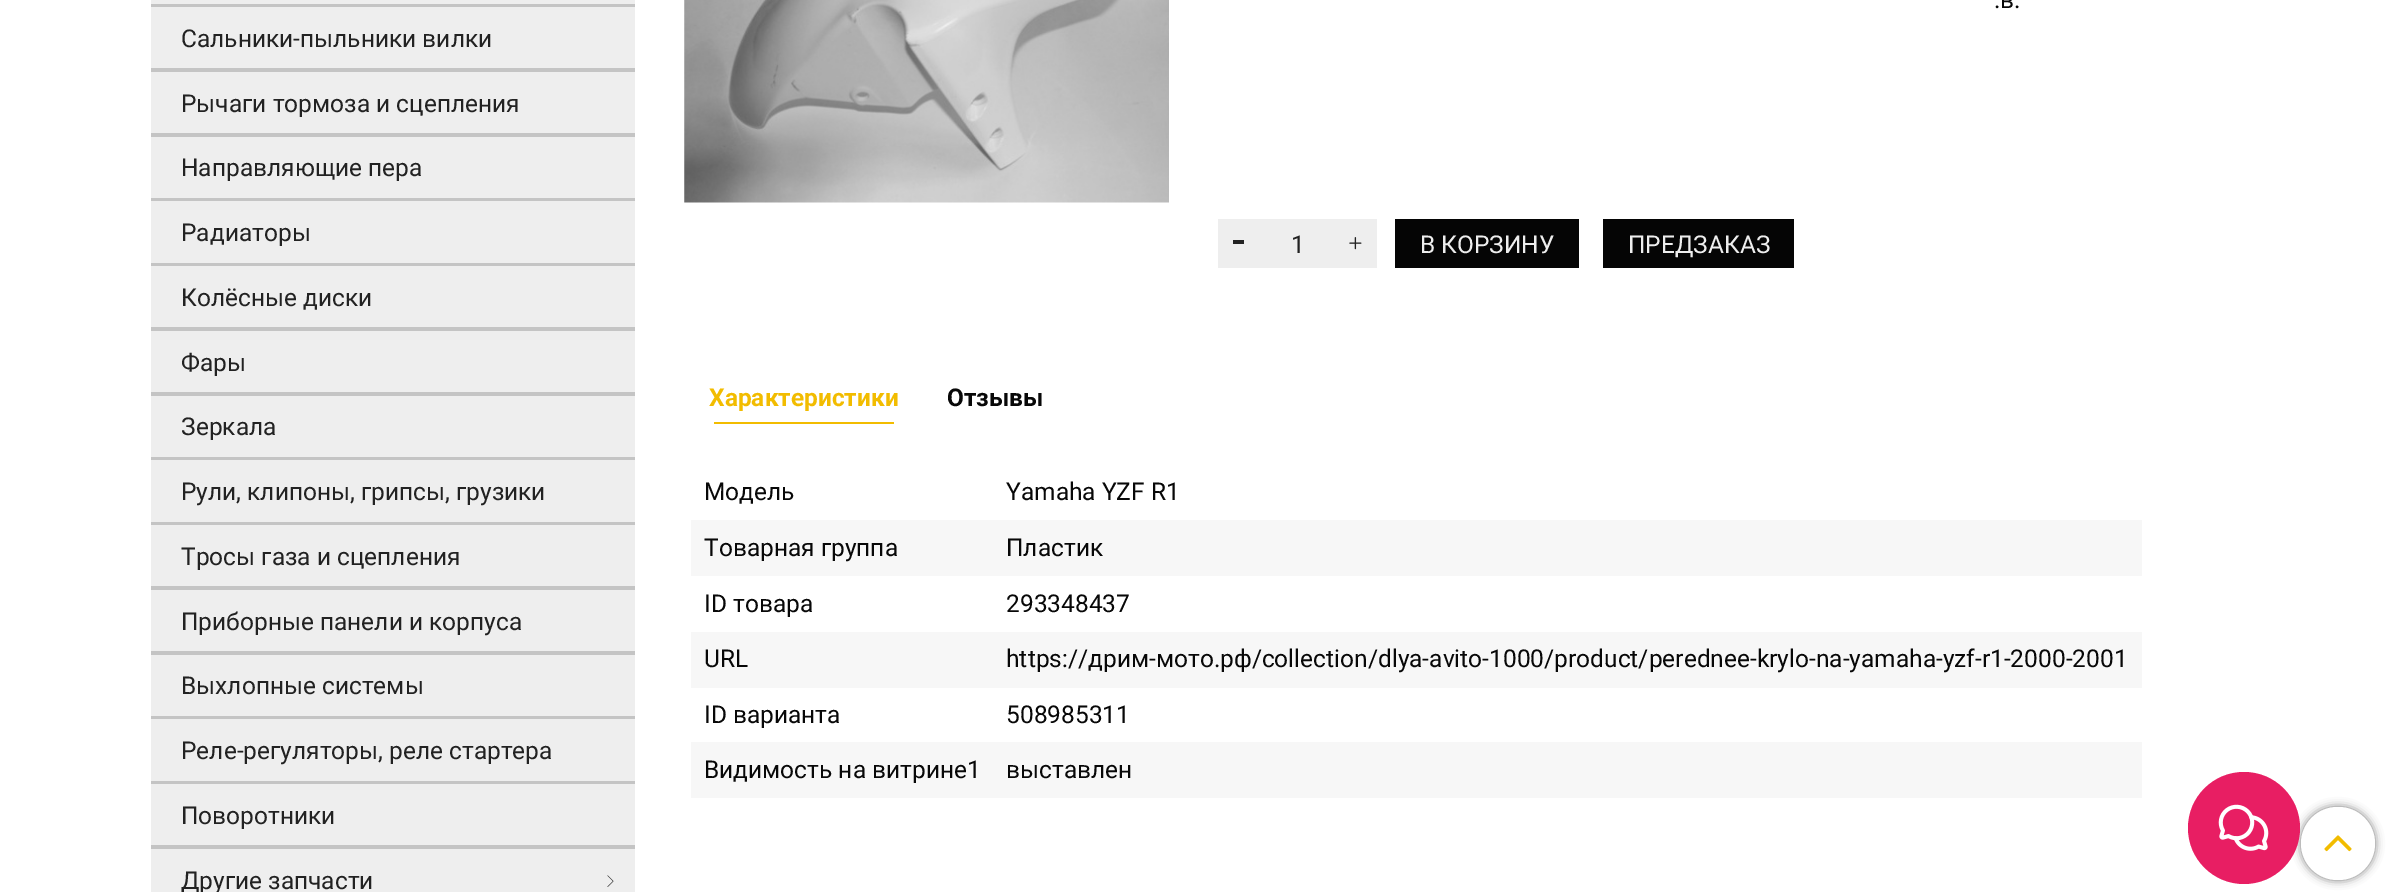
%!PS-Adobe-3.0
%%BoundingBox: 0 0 2386 892
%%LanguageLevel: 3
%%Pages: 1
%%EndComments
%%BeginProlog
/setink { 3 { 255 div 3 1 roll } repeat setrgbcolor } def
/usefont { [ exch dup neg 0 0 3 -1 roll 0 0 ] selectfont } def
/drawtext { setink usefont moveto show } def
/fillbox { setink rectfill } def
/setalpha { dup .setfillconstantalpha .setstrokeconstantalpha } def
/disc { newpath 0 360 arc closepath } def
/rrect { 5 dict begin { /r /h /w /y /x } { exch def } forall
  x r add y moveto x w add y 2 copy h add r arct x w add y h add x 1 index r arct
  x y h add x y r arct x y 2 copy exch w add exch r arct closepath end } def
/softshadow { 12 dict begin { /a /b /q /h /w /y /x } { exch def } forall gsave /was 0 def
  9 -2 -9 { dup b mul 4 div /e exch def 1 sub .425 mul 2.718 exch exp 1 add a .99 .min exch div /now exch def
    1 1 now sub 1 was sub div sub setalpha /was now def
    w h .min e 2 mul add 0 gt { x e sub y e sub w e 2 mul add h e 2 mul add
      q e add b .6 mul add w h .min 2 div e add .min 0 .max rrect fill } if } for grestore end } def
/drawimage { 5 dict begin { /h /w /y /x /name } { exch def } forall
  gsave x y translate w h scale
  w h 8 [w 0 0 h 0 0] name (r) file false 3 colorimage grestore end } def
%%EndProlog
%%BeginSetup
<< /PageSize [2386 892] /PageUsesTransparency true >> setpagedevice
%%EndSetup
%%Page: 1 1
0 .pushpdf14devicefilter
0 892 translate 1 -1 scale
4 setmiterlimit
0 0 2386 892 255 255 255 fillbox
151 0 484 4 238 238 238 fillbox
151 4 484 3 196 196 196 fillbox
151 7 484 61 238 238 238 fillbox
151 68 484 4 196 196 196 fillbox
(Сальники-пыльники вилки) 181 47 /Roboto-Regular 24.5 34 34 34 drawtext
151 72 484 61 238 238 238 fillbox
151 133 484 4 196 196 196 fillbox
(Рычаги тормоза и сцепления) 181 112 /Roboto-Regular 24.5 34 34 34 drawtext
151 137 484 61 238 238 238 fillbox
151 198 484 3 196 196 196 fillbox
(Направляющие пера) 181 176 /Roboto-Regular 24.5 34 34 34 drawtext
151 201 484 62 238 238 238 fillbox
151 263 484 3 196 196 196 fillbox
(Радиаторы) 181 241 /Roboto-Regular 24.5 34 34 34 drawtext
151 266 484 61 238 238 238 fillbox
151 327 484 4 196 196 196 fillbox
(Колёсные диски) 181 306 /Roboto-Regular 24.5 34 34 34 drawtext
151 331 484 61 238 238 238 fillbox
151 392 484 4 196 196 196 fillbox
(Фары) 181 371 /Roboto-Regular 24.5 34 34 34 drawtext
151 396 484 61 238 238 238 fillbox
151 457 484 3 196 196 196 fillbox
(Зеркала) 181 435 /Roboto-Regular 24.5 34 34 34 drawtext
151 460 484 62 238 238 238 fillbox
151 522 484 3 196 196 196 fillbox
(Рули, клипоны, грипсы, грузики) 181 500 /Roboto-Regular 24.5 34 34 34 drawtext
151 525 484 61 238 238 238 fillbox
151 586 484 4 196 196 196 fillbox
(Тросы газа и сцепления) 181 565 /Roboto-Regular 24.5 34 34 34 drawtext
151 590 484 61 238 238 238 fillbox
151 651 484 4 196 196 196 fillbox
(Приборные панели и корпуса) 181 630 /Roboto-Regular 24.5 34 34 34 drawtext
151 655 484 61 238 238 238 fillbox
151 716 484 3 196 196 196 fillbox
(Выхлопные системы) 181 694 /Roboto-Regular 24.5 34 34 34 drawtext
151 719 484 62 238 238 238 fillbox
151 781 484 3 196 196 196 fillbox
(Реле-регуляторы, реле стартера) 181 759 /Roboto-Regular 24.5 34 34 34 drawtext
151 784 484 61 238 238 238 fillbox
151 845 484 4 196 196 196 fillbox
(Поворотники) 181 824 /Roboto-Regular 24.5 34 34 34 drawtext
151 849 484 43 238 238 238 fillbox
(Другие запчасти) 181 889 /Roboto-Regular 24.5 34 34 34 drawtext
(assets/img1.rgb) 607 875 7 12 drawimage
(assets/img2.rgb) 684 0 485 203 drawimage
(.в.) 1994 8 /Roboto-Regular 24.5 8 8 8 drawtext
1218 219 159 49 238 238 238 fillbox
1233 240 11 4 34 34 34 fillbox
(1) 1291 253 /Roboto-Regular 24.5 34 34 34 drawtext
(assets/img3.rgb) 1349 237 13 13 drawimage
1395 219 184 49 5 5 5 fillbox
(В КОРЗИНУ) 1420 253 /Roboto-Regular 24.5 238 238 238 drawtext
1603 219 191 49 5 5 5 fillbox
(ПРЕДЗАКАЗ) 1628 253 /Roboto-Regular 24.5 238 238 238 drawtext
(Характеристики) 709 406 /Roboto-Bold 24.5 242 188 0 drawtext
714 422 180 2 242 188 0 fillbox
(Отзывы) 947 406 /Roboto-Bold 24.5 8 8 8 drawtext
(Модель) 704 500 /Roboto-Regular 24.5 8 8 8 drawtext
(Yamaha YZF R1) 1006 500 /Roboto-Regular 24.5 8 8 8 drawtext
691 520 1451 56 247 247 247 fillbox
(Товарная группа) 704 556 /Roboto-Regular 24.5 8 8 8 drawtext
(Пластик) 1006 556 /Roboto-Regular 24.5 8 8 8 drawtext
(ID товара) 704 612 /Roboto-Regular 24.5 8 8 8 drawtext
(293348437) 1006 612 /Roboto-Regular 24.5 8 8 8 drawtext
691 632 1451 56 247 247 247 fillbox
(URL) 704 667 /Roboto-Regular 24.5 8 8 8 drawtext
(https://дрим-мото.рф/collection/dlya-avito-1000/product/perednee-krylo-na-yamaha-yzf-r1-2000-2001) 1006 667 /Roboto-Regular 24.5 8 8 8 drawtext
(ID варианта) 704 723 /Roboto-Regular 24.5 8 8 8 drawtext
(508985311) 1006 723 /Roboto-Regular 24.5 8 8 8 drawtext
691 742 1451 56 247 247 247 fillbox
(Видимость на витрине1) 704 778 /Roboto-Regular 24.5 8 8 8 drawtext
(выставлен) 1006 778 /Roboto-Regular 24.5 8 8 8 drawtext
119 119 119 setink
2301 807 74 73 36.5 4.5 1 softshadow
255 255 255 setink
2301 807 74 73 36.5 rrect fill
(assets/img4.rgb) 2324 835 28 17 drawimage
232 30 99 setink
2244 828 56 disc fill
(assets/img5.rgb) 2218 804 51 47 drawimage
.poppdf14devicefilter showpage
%%EOF
